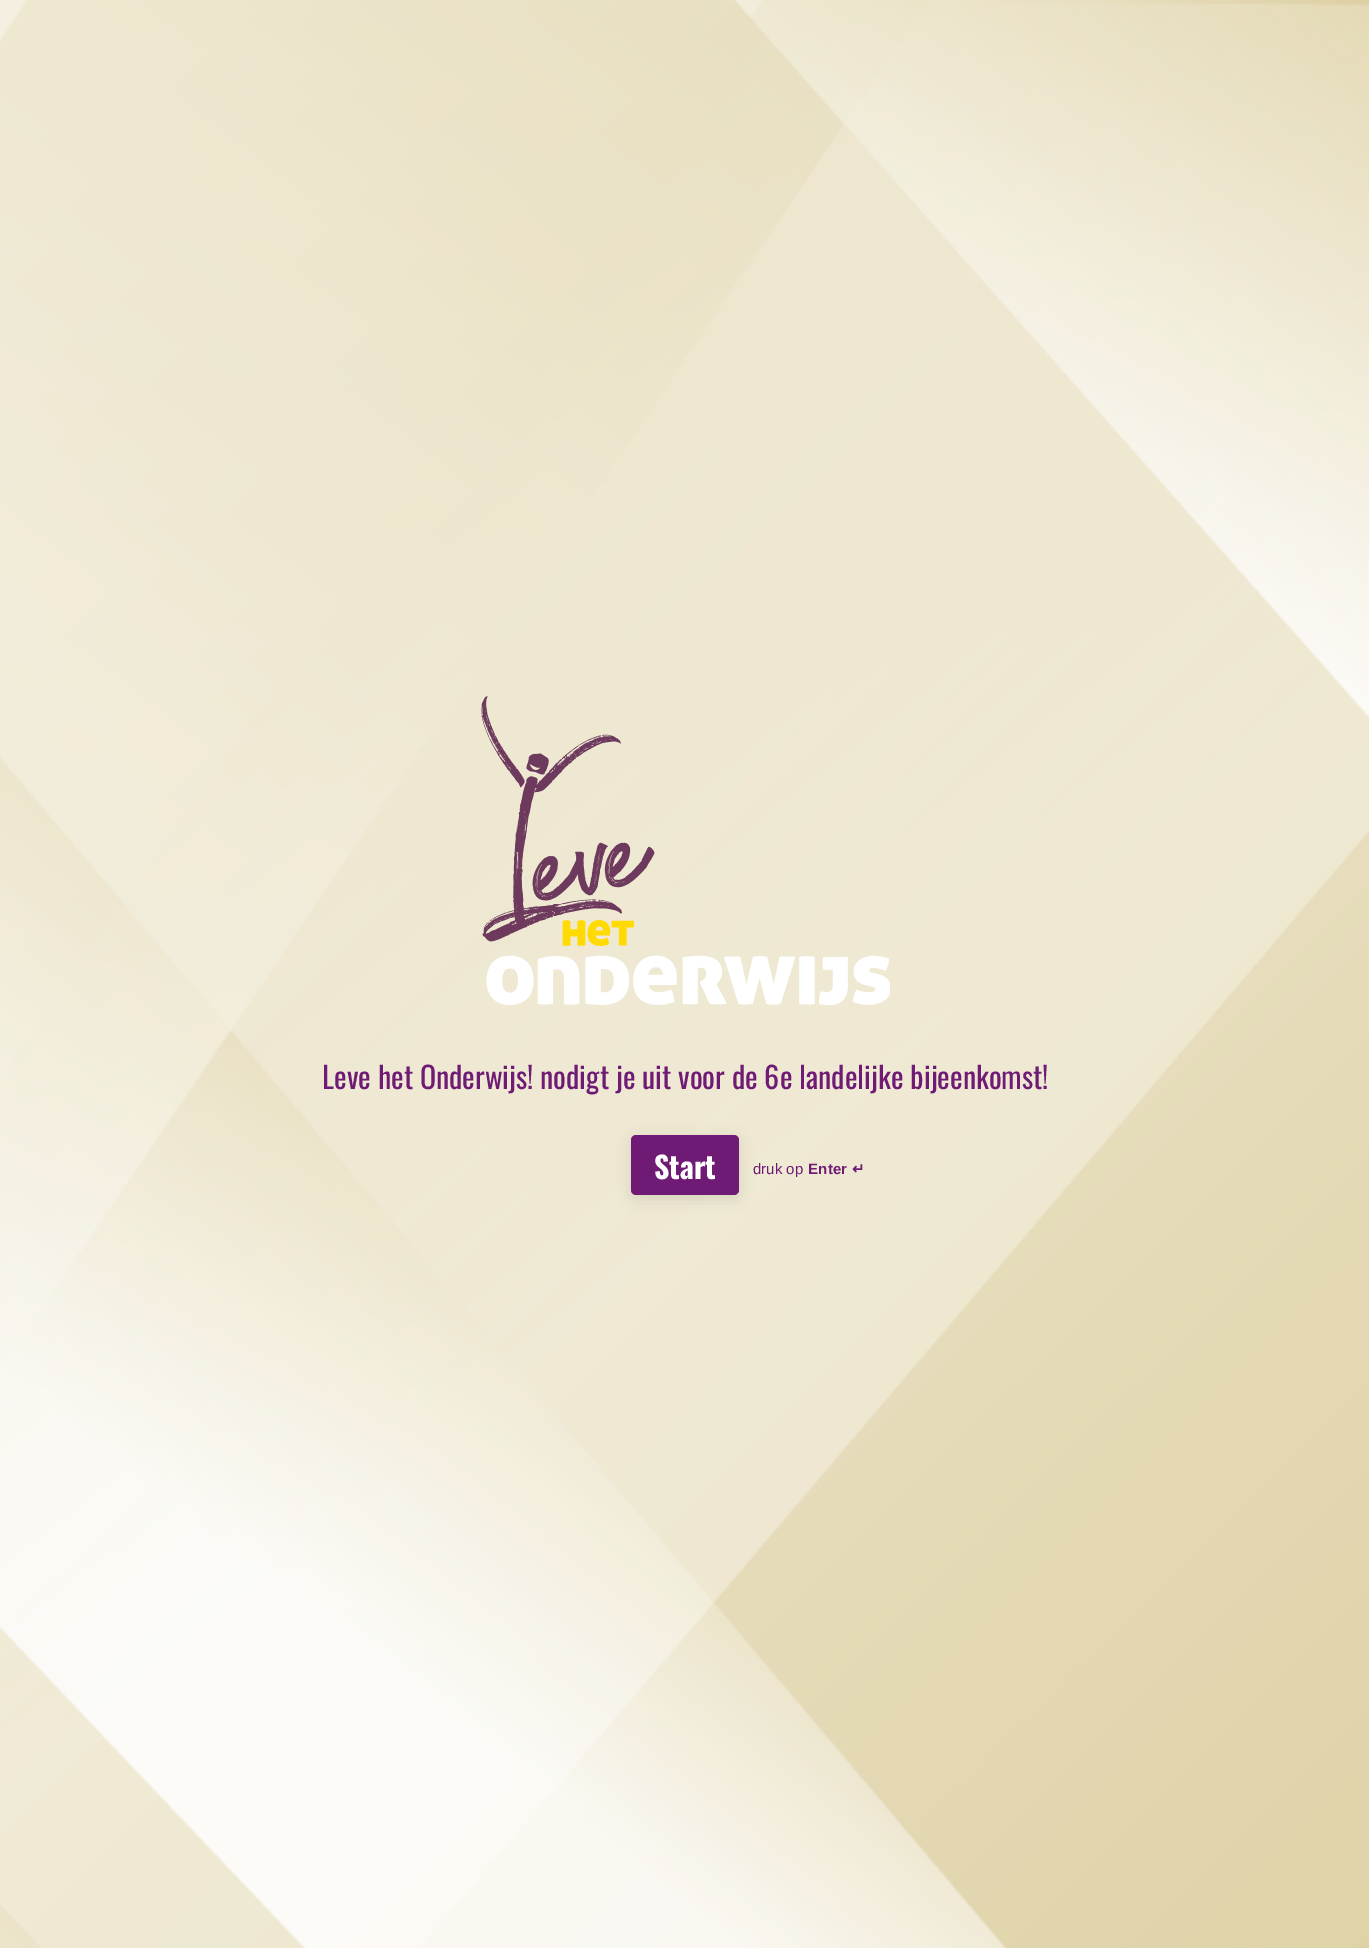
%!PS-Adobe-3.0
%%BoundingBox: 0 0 1369 1948
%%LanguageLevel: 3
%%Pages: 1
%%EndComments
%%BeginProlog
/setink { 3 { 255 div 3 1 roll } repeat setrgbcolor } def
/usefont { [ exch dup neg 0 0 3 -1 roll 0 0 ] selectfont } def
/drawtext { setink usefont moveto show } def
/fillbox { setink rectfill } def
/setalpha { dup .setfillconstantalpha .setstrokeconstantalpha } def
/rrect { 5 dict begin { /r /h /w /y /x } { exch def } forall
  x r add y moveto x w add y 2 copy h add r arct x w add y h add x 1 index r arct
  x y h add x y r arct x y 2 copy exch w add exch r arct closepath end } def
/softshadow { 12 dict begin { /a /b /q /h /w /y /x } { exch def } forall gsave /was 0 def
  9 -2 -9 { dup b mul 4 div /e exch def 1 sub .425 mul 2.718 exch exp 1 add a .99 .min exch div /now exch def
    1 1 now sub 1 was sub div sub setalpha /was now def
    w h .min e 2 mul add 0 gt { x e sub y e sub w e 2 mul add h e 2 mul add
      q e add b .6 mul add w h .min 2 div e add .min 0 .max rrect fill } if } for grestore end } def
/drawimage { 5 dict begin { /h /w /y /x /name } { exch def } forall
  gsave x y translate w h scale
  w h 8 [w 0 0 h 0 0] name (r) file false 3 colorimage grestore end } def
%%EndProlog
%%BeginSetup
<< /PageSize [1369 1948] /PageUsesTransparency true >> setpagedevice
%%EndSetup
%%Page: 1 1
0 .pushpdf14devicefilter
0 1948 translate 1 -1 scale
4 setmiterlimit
0 0 1369 1948 255 255 255 fillbox
(assets/img1.rgb) 0 0 1369 1948 drawimage
(assets/img2.rgb) 481 696 409 309 drawimage
(Leve het Onderwijs! nodigt je uit voor de 6e landelijke bijeenkomst!) 322 1089 /Oswald-Regular 30 111 27 117 drawtext
0 0 0 setink
631 1139 108 60 5 7.5 0.1 softshadow
111 27 117 setink
631 1135 108 60 5 rrect fill
(Start) 654 1179 /Oswald-Bold 30 255 255 255 drawtext
(druk op) 753 1174 /LiberationSans-Regular 15 111 27 117 drawtext
/LiberationSans-Bold 15 usefont
808 1174 moveto 0.25 0 (Enter) ashow
/DejaVuSans-Bold 15 usefont
852 1174 moveto 0.25 0 (↵) ashow
.poppdf14devicefilter showpage
%%EOF
